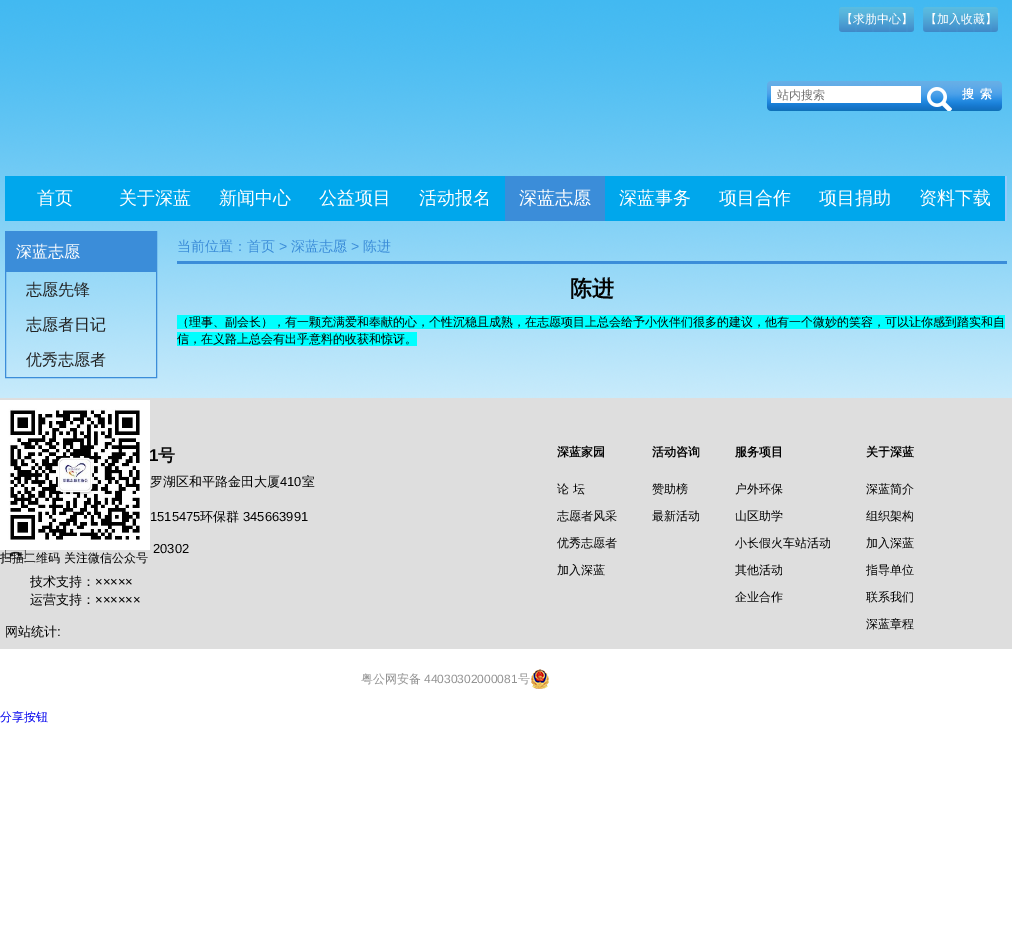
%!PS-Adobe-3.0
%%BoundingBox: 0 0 1012 933
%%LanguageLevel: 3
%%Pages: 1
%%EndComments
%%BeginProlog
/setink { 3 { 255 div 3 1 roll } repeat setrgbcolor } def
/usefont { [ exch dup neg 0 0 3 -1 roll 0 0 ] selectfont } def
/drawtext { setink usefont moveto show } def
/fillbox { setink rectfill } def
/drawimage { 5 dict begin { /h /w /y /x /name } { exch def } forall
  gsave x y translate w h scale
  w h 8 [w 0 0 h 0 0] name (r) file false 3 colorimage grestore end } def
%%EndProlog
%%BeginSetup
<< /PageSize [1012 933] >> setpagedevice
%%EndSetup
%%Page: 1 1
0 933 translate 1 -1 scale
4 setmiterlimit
0 0 1012 933 255 255 255 fillbox
(assets/img1.rgb) 0 0 1012 398 drawimage
(assets/img2.rgb) 839 7 75 25 drawimage
(【求肋中心】) 841 23 /WenQuanYiZenHei-Medium 12 255 255 255 drawtext
(assets/img3.rgb) 923 7 75 25 drawimage
(【加入收藏】) 925 23 /WenQuanYiZenHei-Medium 12 255 255 255 drawtext
(assets/img4.rgb) 767 81 235 30 drawimage
771 86 150 17 255 255 255 fillbox
(站内搜索) 777 99 /WenQuanYiZenHei-Medium 12 117 117 117 drawtext
(搜) 962 98 /WenQuanYiZenHei-Bold 12 255 255 255 drawtext
(索) 980 98 /WenQuanYiZenHei-Bold 12 255 255 255 drawtext
1005 176 2 45 150 202 250 fillbox
5 176 500 45 0 167 236 fillbox
(首页) 37 204 /WenQuanYiZenHei-Medium 18 255 255 255 drawtext
(关于深蓝) 119 204 /WenQuanYiZenHei-Medium 18 255 255 255 drawtext
(新闻中心) 219 204 /WenQuanYiZenHei-Medium 18 255 255 255 drawtext
(公益项目) 319 204 /WenQuanYiZenHei-Medium 18 255 255 255 drawtext
(活动报名) 419 204 /WenQuanYiZenHei-Medium 18 255 255 255 drawtext
505 176 100 45 59 141 217 fillbox
(深蓝志愿) 519 204 /WenQuanYiZenHei-Medium 18 255 255 255 drawtext
605 176 400 45 0 167 236 fillbox
(深蓝事务) 619 204 /WenQuanYiZenHei-Medium 18 255 255 255 drawtext
(项目合作) 719 204 /WenQuanYiZenHei-Medium 18 255 255 255 drawtext
(项目捐助) 819 204 /WenQuanYiZenHei-Medium 18 255 255 255 drawtext
(资料下载) 919 204 /WenQuanYiZenHei-Medium 18 255 255 255 drawtext
59 141 217 setink
5.5 231.5 151 146 rectstroke
6 232 150 40 59 141 217 fillbox
(深蓝志愿) 16 257 /WenQuanYiZenHei-Medium 16 255 255 255 drawtext
(志愿先锋) 26 295 /WenQuanYiZenHei-Medium 16 34 34 34 drawtext
(志愿者日记) 26 330 /WenQuanYiZenHei-Medium 16 34 34 34 drawtext
(优秀志愿者) 26 365 /WenQuanYiZenHei-Medium 16 34 34 34 drawtext
177 261 830 3 59 141 217 fillbox
(当前位置：首页) 177 251 /WenQuanYiZenHei-Medium 14 59 141 217 drawtext
(>) 279 251 /LiberationSans-Regular 14 59 141 217 drawtext
(深蓝志愿) 291 251 /WenQuanYiZenHei-Medium 14 59 141 217 drawtext
(>) 351 251 /LiberationSans-Regular 14 59 141 217 drawtext
(陈进) 363 251 /WenQuanYiZenHei-Medium 14 59 141 217 drawtext
(陈进) 570 296 /WenQuanYiZenHei-Bold 22 3 3 3 drawtext
177 315 828 14 0 255 255 fillbox
(（理事、副会长），有一颗充满爱和奉献的心，个性沉稳且成熟，在志愿项目上总会给予小伙伴们很多的建议，他有一个微妙的笑容，可以让你感到踏实和自) 177 326 /WenQuanYiZenHei-Medium 12 3 3 3 drawtext
177 332 240 14 0 255 255 fillbox
(信，在义路上总会有出乎意料的收获和惊讶。) 177 343 /WenQuanYiZenHei-Medium 12 3 3 3 drawtext
0 398 1012 251 222 222 222 fillbox
(1) 149 461 /LiberationSans-Bold 17 3 3 3 drawtext
(号) 158 461 /WenQuanYiZenHei-Bold 17 3 3 3 drawtext
(罗湖区和平路金田大厦) 150 486 /WenQuanYiZenHei-Medium 13 3 3 3 drawtext
(410) 280 486 /LiberationSans-Regular 13 3 3 3 drawtext
(室) 302 486 /WenQuanYiZenHei-Medium 13 3 3 3 drawtext
(1515475) 150 521 /LiberationSans-Regular 13 3 3 3 drawtext
(环保群) 200 521 /WenQuanYiZenHei-Medium 13 3 3 3 drawtext
(345663991) 243 521 /LiberationSans-Regular 13 3 3 3 drawtext
(assets/img5.rgb) 5 550 21 9 drawimage
(20302) 153 553 /LiberationSans-Regular 13 3 3 3 drawtext
(技术支持：) 30 586 /WenQuanYiZenHei-Medium 13 3 3 3 drawtext
(×××××) 95 586 /LiberationSans-Regular 13 3 3 3 drawtext
(运营支持：) 30 604 /WenQuanYiZenHei-Medium 13 3 3 3 drawtext
(××××××) 95 604 /LiberationSans-Regular 13 3 3 3 drawtext
(网站统计) 5 636 /WenQuanYiZenHei-Medium 13 3 3 3 drawtext
(:) 57 636 /LiberationSans-Regular 13 3 3 3 drawtext
(深蓝家园) 557 456 /WenQuanYiZenHei-Bold 12 3 3 3 drawtext
(论 坛) 557 493 /WenQuanYiZenHei-Medium 12 3 3 3 drawtext
(志愿者风采) 557 520 /WenQuanYiZenHei-Medium 12 3 3 3 drawtext
(优秀志愿者) 557 547 /WenQuanYiZenHei-Medium 12 3 3 3 drawtext
(加入深蓝) 557 574 /WenQuanYiZenHei-Medium 12 3 3 3 drawtext
(活动咨询) 652 456 /WenQuanYiZenHei-Bold 12 3 3 3 drawtext
(赞助榜) 652 493 /WenQuanYiZenHei-Medium 12 3 3 3 drawtext
(最新活动) 652 520 /WenQuanYiZenHei-Medium 12 3 3 3 drawtext
(服务项目) 735 456 /WenQuanYiZenHei-Bold 12 3 3 3 drawtext
(户外环保) 735 493 /WenQuanYiZenHei-Medium 12 3 3 3 drawtext
(山区助学) 735 520 /WenQuanYiZenHei-Medium 12 3 3 3 drawtext
(小长假火车站活动) 735 547 /WenQuanYiZenHei-Medium 12 3 3 3 drawtext
(其他活动) 735 574 /WenQuanYiZenHei-Medium 12 3 3 3 drawtext
(企业合作) 735 601 /WenQuanYiZenHei-Medium 12 3 3 3 drawtext
(关于深蓝) 866 456 /WenQuanYiZenHei-Bold 12 3 3 3 drawtext
(深蓝简介) 866 493 /WenQuanYiZenHei-Medium 12 3 3 3 drawtext
(组织架构) 866 520 /WenQuanYiZenHei-Medium 12 3 3 3 drawtext
(加入深蓝) 866 547 /WenQuanYiZenHei-Medium 12 3 3 3 drawtext
(指导单位) 866 574 /WenQuanYiZenHei-Medium 12 3 3 3 drawtext
(联系我们) 866 601 /WenQuanYiZenHei-Medium 12 3 3 3 drawtext
(深蓝章程) 866 628 /WenQuanYiZenHei-Medium 12 3 3 3 drawtext
(assets/img6.rgb) 0 400 150 150 drawimage
(扫描二维码 关注微信公众号) 0 562 /WenQuanYiZenHei-Medium 12 3 3 3 drawtext
(粤公网安备) 361 683 /WenQuanYiZenHei-Medium 12 147 147 147 drawtext
(44030302000081) 424 683 /LiberationSans-Regular 12 147 147 147 drawtext
(号) 518 683 /WenQuanYiZenHei-Medium 12 147 147 147 drawtext
(assets/img7.rgb) 531 669 18 20 drawimage
(分享按钮) 0 721 /WenQuanYiZenHei-Medium 12 0 0 238 drawtext
showpage
%%EOF
